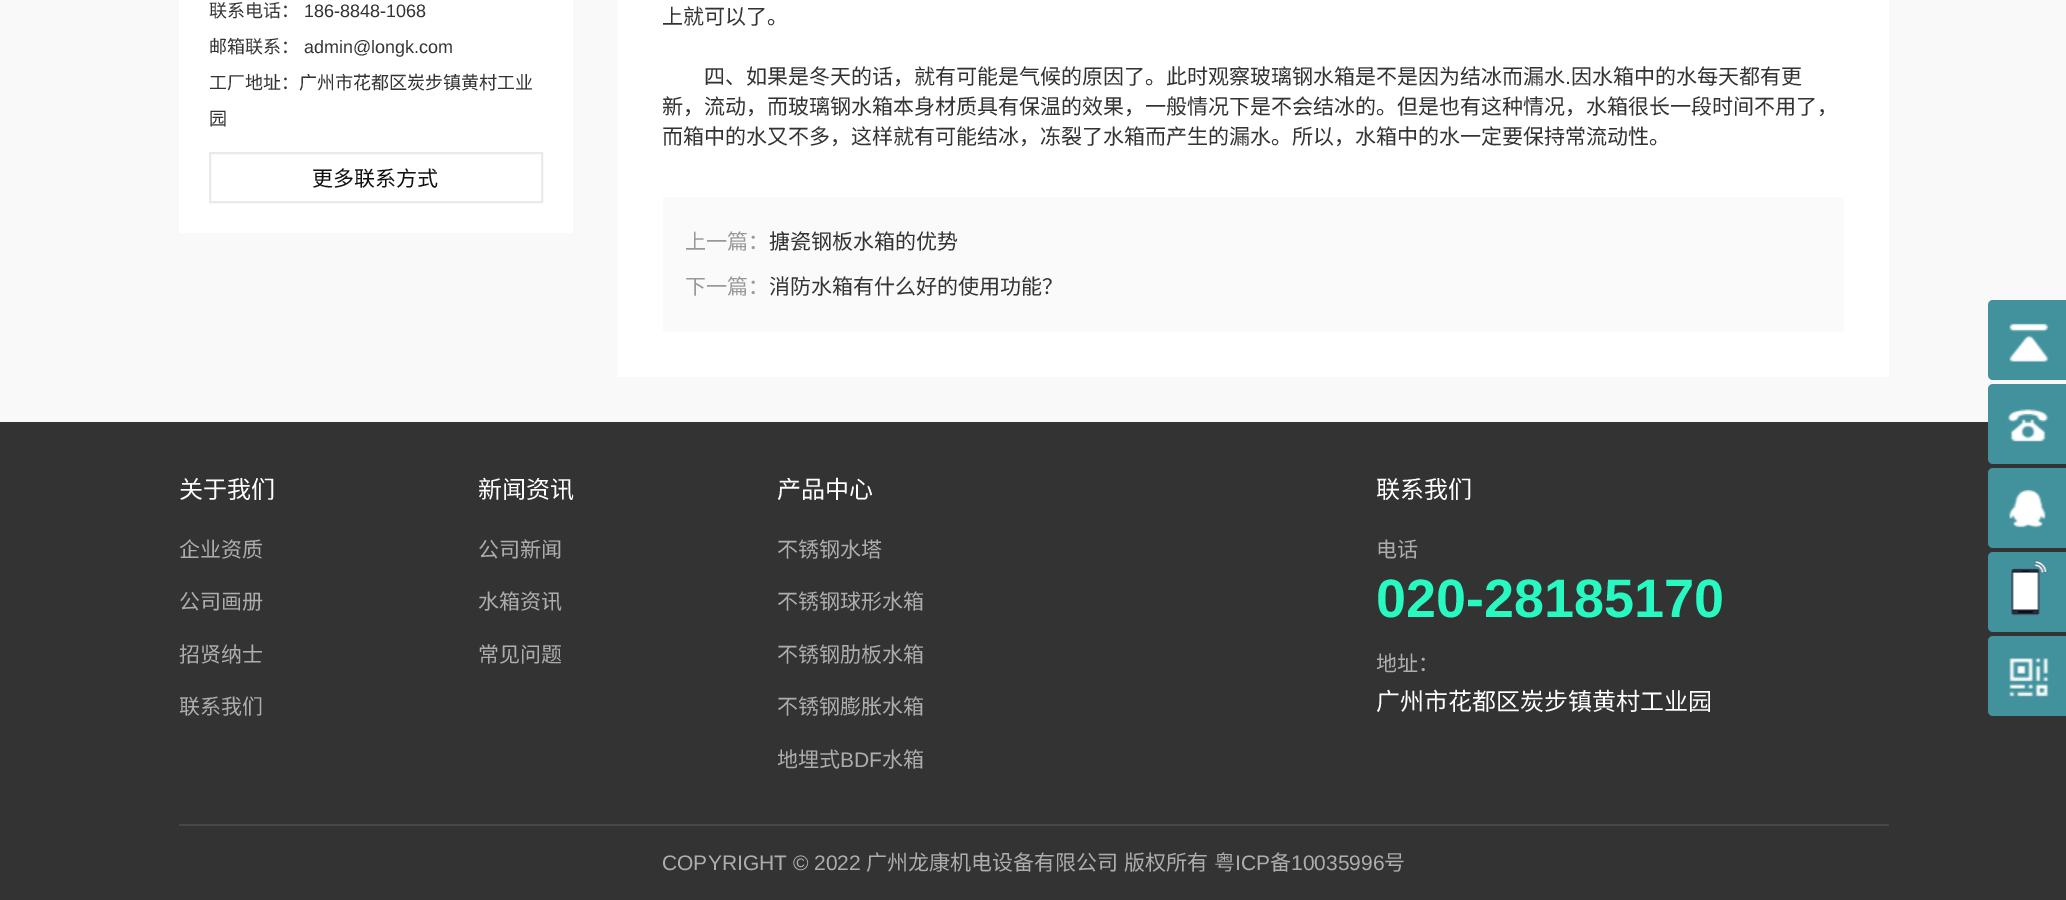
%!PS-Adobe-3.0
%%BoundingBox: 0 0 2066 900
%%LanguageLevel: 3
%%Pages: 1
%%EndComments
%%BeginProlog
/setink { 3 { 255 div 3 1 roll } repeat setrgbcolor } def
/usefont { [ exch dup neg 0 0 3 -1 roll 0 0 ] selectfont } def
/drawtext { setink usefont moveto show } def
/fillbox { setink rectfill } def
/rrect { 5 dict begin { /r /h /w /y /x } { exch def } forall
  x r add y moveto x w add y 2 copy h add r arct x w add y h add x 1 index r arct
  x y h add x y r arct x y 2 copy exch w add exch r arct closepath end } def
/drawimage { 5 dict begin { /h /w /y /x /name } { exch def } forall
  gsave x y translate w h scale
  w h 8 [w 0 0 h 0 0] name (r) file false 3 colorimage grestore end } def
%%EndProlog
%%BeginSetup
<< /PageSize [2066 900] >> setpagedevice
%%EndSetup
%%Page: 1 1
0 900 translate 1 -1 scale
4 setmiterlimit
0 0 2066 900 249 249 249 fillbox
179 0 394 233 255 255 255 fillbox
(联系电话：) 209 17 /NotoSansCJKSC-Regular 18 51 51 51 drawtext
(186-8848-1068) 304 17 /LiberationSans-Regular 18 51 51 51 drawtext
(邮箱联系：) 209 53 /NotoSansCJKSC-Regular 18 51 51 51 drawtext
(admin@longk.com) 304 53 /LiberationSans-Regular 18 51 51 51 drawtext
(工厂地址：广州市花都区炭步镇黄村工业) 209 89 /NotoSansCJKSC-Regular 18 51 51 51 drawtext
(园) 209 125 /NotoSansCJKSC-Regular 18 51 51 51 drawtext
234 234 234 setink
2 setlinewidth
210 153 332 49 rectstroke
(更多联系方式) 312 186 /NotoSansCJKSC-Regular 21 17 17 17 drawtext
618 0 1271 377 255 255 255 fillbox
(上就可以了。) 662 24 /NotoSansCJKSC-Regular 21 51 51 51 drawtext
(四、如果是冬天的话，就有可能是气候的原因了。此时观察玻璃钢水箱是不是因为结冰而漏水) 704 84 /NotoSansCJKSC-Regular 21 51 51 51 drawtext
(.) 1565 84 /LiberationSans-Regular 21 51 51 51 drawtext
(因水箱中的水每天都有更) 1571 84 /NotoSansCJKSC-Regular 21 51 51 51 drawtext
(新，流动，而玻璃钢水箱本身材质具有保温的效果，一般情况下是不会结冰的。但是也有这种情况，水箱很长一段时间不用了，) 662 114 /NotoSansCJKSC-Regular 21 51 51 51 drawtext
(而箱中的水又不多，这样就有可能结冰，冻裂了水箱而产生的漏水。所以，水箱中的水一定要保持常流动性。) 662 144 /NotoSansCJKSC-Regular 21 51 51 51 drawtext
663 197 1181 135 250 250 250 fillbox
(上一篇：) 685 249 /NotoSansCJKSC-Regular 21 153 153 153 drawtext
(搪瓷钢板水箱的优势) 769 249 /NotoSansCJKSC-Regular 21 51 51 51 drawtext
(下一篇：) 685 294 /NotoSansCJKSC-Regular 21 153 153 153 drawtext
(消防水箱有什么好的使用功能？) 769 294 /NotoSansCJKSC-Regular 21 51 51 51 drawtext
0 422 2066 478 51 51 51 fillbox
(关于我们) 179 498 /NotoSansCJKSC-Regular 24 255 255 255 drawtext
(企业资质) 179 557 /NotoSansCJKSC-Regular 21 173 173 173 drawtext
(公司画册) 179 609 /NotoSansCJKSC-Regular 21 173 173 173 drawtext
(招贤纳士) 179 662 /NotoSansCJKSC-Regular 21 173 173 173 drawtext
(联系我们) 179 714 /NotoSansCJKSC-Regular 21 173 173 173 drawtext
(新闻资讯) 478 498 /NotoSansCJKSC-Regular 24 255 255 255 drawtext
(公司新闻) 478 557 /NotoSansCJKSC-Regular 21 173 173 173 drawtext
(水箱资讯) 478 609 /NotoSansCJKSC-Regular 21 173 173 173 drawtext
(常见问题) 478 662 /NotoSansCJKSC-Regular 21 173 173 173 drawtext
(产品中心) 777 498 /NotoSansCJKSC-Regular 24 255 255 255 drawtext
(不锈钢水塔) 777 557 /NotoSansCJKSC-Regular 21 173 173 173 drawtext
(不锈钢球形水箱) 777 609 /NotoSansCJKSC-Regular 21 173 173 173 drawtext
(不锈钢肋板水箱) 777 662 /NotoSansCJKSC-Regular 21 173 173 173 drawtext
(不锈钢膨胀水箱) 777 714 /NotoSansCJKSC-Regular 21 173 173 173 drawtext
(地埋式) 777 767 /NotoSansCJKSC-Regular 21 173 173 173 drawtext
(BDF) 840 767 /LiberationSans-Regular 21 173 173 173 drawtext
(水箱) 882 767 /NotoSansCJKSC-Regular 21 173 173 173 drawtext
(联系我们) 1376 498 /NotoSansCJKSC-Regular 24 255 255 255 drawtext
(电话) 1376 557 /NotoSansCJKSC-Regular 21 173 173 173 drawtext
(020-28185170) 1376 617 /LiberationSans-Bold 54 39 249 193 drawtext
(地址：) 1376 671 /NotoSansCJKSC-Regular 21 173 173 173 drawtext
(广州市花都区炭步镇黄村工业园) 1376 710 /NotoSansCJKSC-Regular 24 255 255 255 drawtext
179 824 1710 2 71 71 71 fillbox
(COPYRIGHT © 2022) 662 870 /LiberationSans-Regular 21 173 173 173 drawtext
(广州龙康机电设备有限公司) 866 870 /NotoSansCJKSC-Regular 21 173 173 173 drawtext
(版权所有) 1124 870 /NotoSansCJKSC-Regular 21 173 173 173 drawtext
(粤) 1214 870 /NotoSansCJKSC-Regular 21 173 173 173 drawtext
(ICP) 1235 870 /LiberationSans-Regular 21 173 173 173 drawtext
(备) 1270 870 /NotoSansCJKSC-Regular 21 173 173 173 drawtext
(10035996) 1291 870 /LiberationSans-Regular 21 173 173 173 drawtext
(号) 1384 870 /NotoSansCJKSC-Regular 21 173 173 173 drawtext
66 146 157 setink
1988 300 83 80 5 rrect fill
(assets/img1.rgb) 2009 323 40 39 drawimage
1988 384 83 80 5 rrect fill
(assets/img2.rgb) 2007 409 42 33 drawimage
1988 468 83 80 5 rrect fill
(assets/img3.rgb) 2008 489 38 39 drawimage
1988 552 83 80 5 rrect fill
(assets/img4.rgb) 2011 560 37 56 drawimage
1988 636 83 80 5 rrect fill
(assets/img5.rgb) 2009 658 40 39 drawimage
showpage
%%EOF
